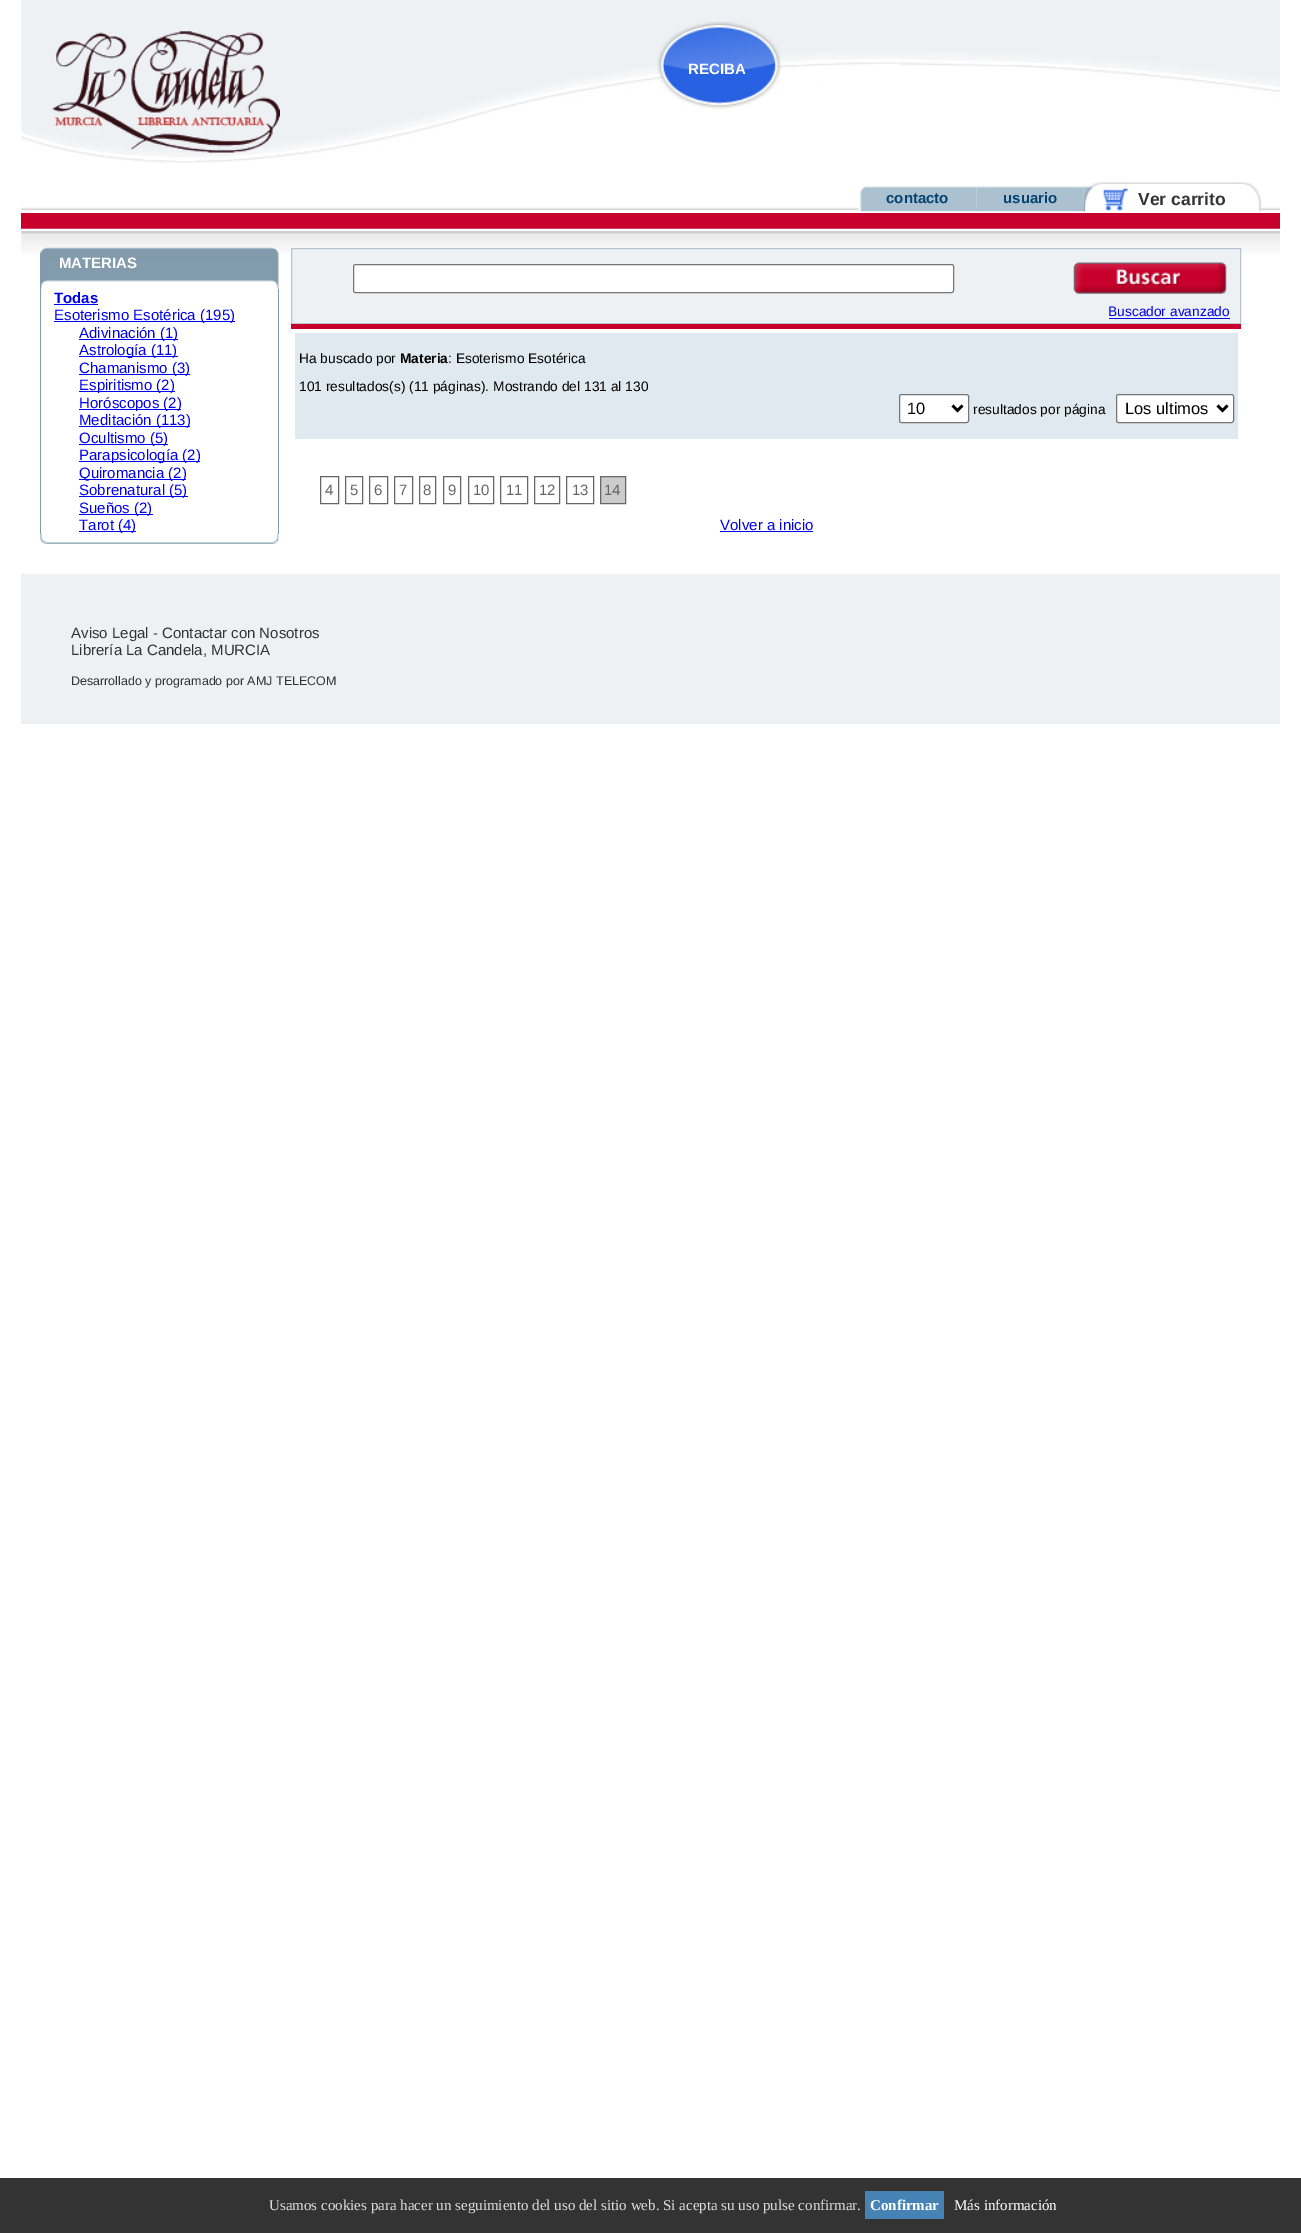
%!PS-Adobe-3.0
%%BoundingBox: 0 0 1301 2233
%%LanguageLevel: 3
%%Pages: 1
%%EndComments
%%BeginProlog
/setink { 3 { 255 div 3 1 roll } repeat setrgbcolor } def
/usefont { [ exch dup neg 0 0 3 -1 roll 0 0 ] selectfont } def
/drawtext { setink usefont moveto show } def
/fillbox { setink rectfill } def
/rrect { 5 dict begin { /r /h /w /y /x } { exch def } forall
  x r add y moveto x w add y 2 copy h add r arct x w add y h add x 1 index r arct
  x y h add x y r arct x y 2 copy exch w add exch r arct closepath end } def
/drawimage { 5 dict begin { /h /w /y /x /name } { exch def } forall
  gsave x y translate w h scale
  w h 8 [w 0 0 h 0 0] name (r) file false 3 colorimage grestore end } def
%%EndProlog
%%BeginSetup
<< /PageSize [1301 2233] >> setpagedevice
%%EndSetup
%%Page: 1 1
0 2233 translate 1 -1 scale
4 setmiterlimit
0 0 1301 2233 255 255 255 fillbox
(assets/img1.rgb) 21 0 1259 163 drawimage
(assets/img2.rgb) 52 31 228 122 drawimage
(RECIBA) 688 74 /LiberationSans-Bold 15 255 255 255 drawtext
(assets/img3.rgb) 21 207 1259 4 drawimage
(assets/img4.rgb) 858 186 119 26 drawimage
(contacto) 886 203 /LiberationSans-Bold 15 3 67 113 drawtext
(assets/img5.rgb) 976 186 108 26 drawimage
(usuario) 1003 203 /LiberationSans-Bold 15 3 67 113 drawtext
(assets/img6.rgb) 1083 182 179 30 drawimage
(Ver carrito) 1138 205 /LiberationSans-Bold 17.5 51 51 51 drawtext
21 213 1259 16 199 0 44 fillbox
(assets/img7.rgb) 21 228 1259 26 drawimage
(assets/img8.rgb) 40 247 239 42 drawimage
(MATERIAS) 59 268 /LiberationSans-Bold 15 255 255 255 drawtext
(assets/img9.rgb) 40 533 239 11 drawimage
278 289 1 245 130 155 172 fillbox
40 289 1 245 130 155 172 fillbox
(Todas) 54 303 /LiberationSans-Bold 15 0 0 238 drawtext
54 304 44 1 0 0 238 fillbox
54 321 181 1 0 0 238 fillbox
(Esoterismo Esotérica \(195\)) 54 320 /LiberationSans-Regular 15 0 0 238 drawtext
79 339 99 1 0 0 238 fillbox
(Adivinación \(1\)) 79 338 /LiberationSans-Regular 15 0 0 238 drawtext
79 356 99 1 0 0 238 fillbox
(Astrología \(11\)) 79 355 /LiberationSans-Regular 15 0 0 238 drawtext
79 374 111 1 0 0 238 fillbox
(Chamanismo \(3\)) 79 373 /LiberationSans-Regular 15 0 0 238 drawtext
79 391 96 1 0 0 238 fillbox
(Espiritismo \(2\)) 79 390 /LiberationSans-Regular 15 0 0 238 drawtext
79 409 102 1 0 0 238 fillbox
(Horóscopos \(2\)) 79 408 /LiberationSans-Regular 15 0 0 238 drawtext
79 426 111 1 0 0 238 fillbox
(Meditación \(113\)) 79 425 /LiberationSans-Regular 15 0 0 238 drawtext
79 444 89 1 0 0 238 fillbox
(Ocultismo \(5\)) 79 443 /LiberationSans-Regular 15 0 0 238 drawtext
79 461 121 1 0 0 238 fillbox
(Parapsicología \(2\)) 79 460 /LiberationSans-Regular 15 0 0 238 drawtext
79 479 107 1 0 0 238 fillbox
(Quiromancia \(2\)) 79 478 /LiberationSans-Regular 15 0 0 238 drawtext
79 496 109 1 0 0 238 fillbox
(Sobrenatural \(5\)) 79 495 /LiberationSans-Regular 15 0 0 238 drawtext
79 514 74 1 0 0 238 fillbox
(Sueños \(2\)) 79 513 /LiberationSans-Regular 15 0 0 238 drawtext
79 531 57 1 0 0 238 fillbox
(Tarot \(4\)) 79 530 /LiberationSans-Regular 15 0 0 238 drawtext
237 241 244 setink
291.5 248.5 moveto 1240.5 248.5 lineto 1240.5 323.5 lineto 291.5 323.5 lineto closepath gsave fill grestore
181 196 207 setink
stroke
255 255 255 setink
353.5 264.5 600 28 2 rrect gsave fill grestore
118 118 118 setink
stroke
(assets/img10.rgb) 1073 262 154 32 drawimage
(Buscador avanzado) 1108 316 /LiberationSans-Regular 13.75 0 0 238 drawtext
1109 318 121 1 0 0 238 fillbox
291 324 950 5 199 0 44 fillbox
295 333 943 106 224 233 239 fillbox
(Ha buscado por) 299 363 /LiberationSans-Regular 13.75 0 0 0 drawtext
(Materia) 400 363 /LiberationSans-Bold 13.75 0 0 0 drawtext
(: Esoterismo Esotérica) 448 363 /LiberationSans-Regular 13.75 0 0 0 drawtext
(101 resultados\(s\) \(11 páginas\). Mostrando del 131 al 130) 299 391 /LiberationSans-Regular 13.75 0 0 0 drawtext
255 255 255 setink
899.5 394.5 69 28 2 rrect gsave fill grestore
118 118 118 setink
stroke
0 0 0 setink
2.5 setlinewidth
952.5 405.5 moveto 957.5 410.5 lineto 962.5 405.5 lineto stroke
(10) 907 414 /LiberationSans-Regular 16.5 0 0 0 drawtext
(resultados por página) 973 414 /LiberationSans-Regular 13.75 0 0 0 drawtext
255 255 255 setink
1116.5 394.5 117 28 2 rrect gsave fill grestore
118 118 118 setink
1 setlinewidth
stroke
0 0 0 setink
2.5 setlinewidth
1217.5 405.5 moveto 1222.5 410.5 lineto 1227.5 405.5 lineto stroke
(Los ultimos) 1125 414 /LiberationSans-Regular 16.5 0 0 0 drawtext
102 102 102 setink
1 setlinewidth
320.5 476.5 18 27 rectstroke
(4) 325 495 /LiberationSans-Regular 15 102 102 102 drawtext
345.5 476.5 17 27 rectstroke
(5) 350 495 /LiberationSans-Regular 15 102 102 102 drawtext
369.5 476.5 18 27 rectstroke
(6) 374 495 /LiberationSans-Regular 15 102 102 102 drawtext
394.5 476.5 18 27 rectstroke
(7) 399 495 /LiberationSans-Regular 15 102 102 102 drawtext
419.5 476.5 16 27 rectstroke
(8) 423 495 /LiberationSans-Regular 15 102 102 102 drawtext
443.5 476.5 17 27 rectstroke
(9) 448 495 /LiberationSans-Regular 15 102 102 102 drawtext
468.5 476.5 25 27 rectstroke
(10) 473 495 /LiberationSans-Regular 15 102 102 102 drawtext
500.5 476.5 27 27 rectstroke
(11) 506 495 /LiberationSans-Regular 15 102 102 102 drawtext
534.5 476.5 25 27 rectstroke
(12) 539 495 /LiberationSans-Regular 15 102 102 102 drawtext
566.5 476.5 27 27 rectstroke
(13) 572 495 /LiberationSans-Regular 15 102 102 102 drawtext
204 204 204 setink
600.5 476.5 moveto 625.5 476.5 lineto 625.5 503.5 lineto 600.5 503.5 lineto closepath gsave fill grestore
102 102 102 setink
stroke
(14) 604 495 /LiberationSans-Regular 15 102 102 102 drawtext
(Volver a inicio) 720 530 /LiberationSans-Regular 15 0 0 238 drawtext
720 531 93 1 0 0 238 fillbox
21 574 1259 150 237 241 244 fillbox
(Aviso Legal - Contactar con Nosotros) 71 638 /LiberationSans-Regular 15 51 51 51 drawtext
(Librería La Candela, MURCIA) 71 655 /LiberationSans-Regular 15 51 51 51 drawtext
(Desarrollado y programado por AMJ TELECOM) 71 685 /LiberationSans-Regular 12.5 51 51 51 drawtext
0 2178 1301 55 51 51 51 fillbox
(Usamos cookies para hacer un seguimiento del uso del sitio web. Si acepta su uso pulse confirmar.) 269 2210 /LiberationSerif-Regular 15 221 221 221 drawtext
865 2191 79 28 70 130 180 fillbox
(Confirmar) 870 2210 /LiberationSerif-Bold 15 255 255 255 drawtext
(Más información) 954 2210 /LiberationSerif-Regular 15 255 255 255 drawtext
showpage
%%EOF
